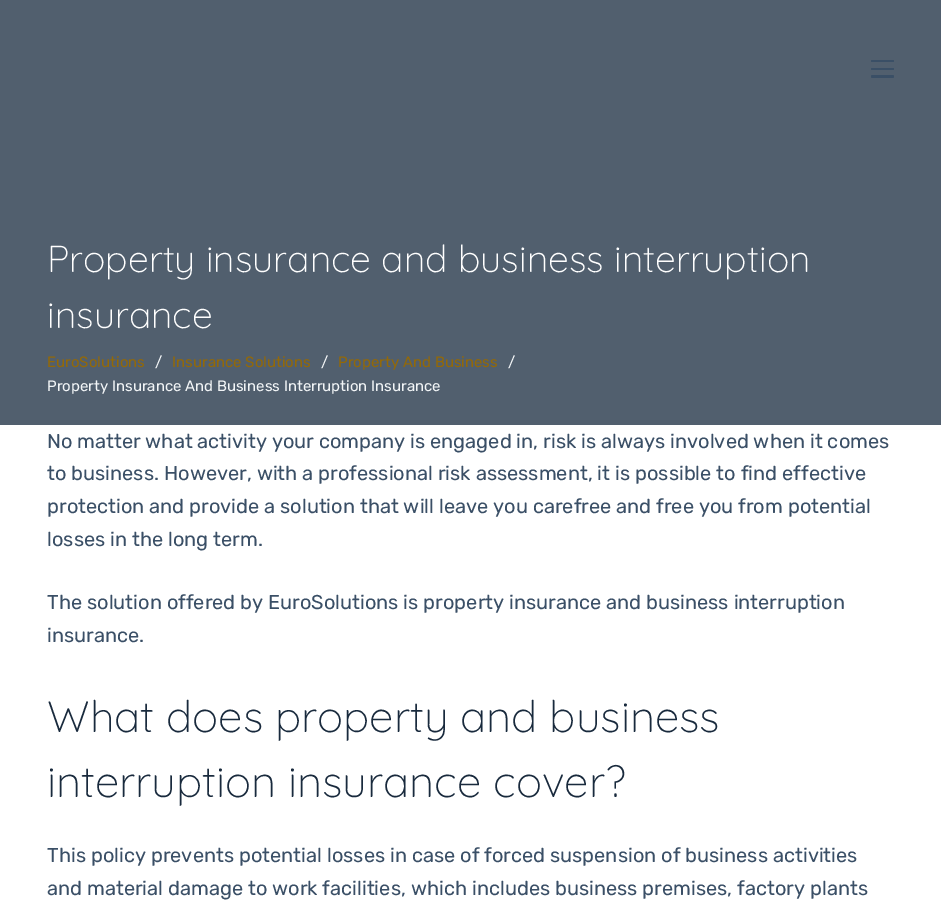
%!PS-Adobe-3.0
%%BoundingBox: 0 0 941 906
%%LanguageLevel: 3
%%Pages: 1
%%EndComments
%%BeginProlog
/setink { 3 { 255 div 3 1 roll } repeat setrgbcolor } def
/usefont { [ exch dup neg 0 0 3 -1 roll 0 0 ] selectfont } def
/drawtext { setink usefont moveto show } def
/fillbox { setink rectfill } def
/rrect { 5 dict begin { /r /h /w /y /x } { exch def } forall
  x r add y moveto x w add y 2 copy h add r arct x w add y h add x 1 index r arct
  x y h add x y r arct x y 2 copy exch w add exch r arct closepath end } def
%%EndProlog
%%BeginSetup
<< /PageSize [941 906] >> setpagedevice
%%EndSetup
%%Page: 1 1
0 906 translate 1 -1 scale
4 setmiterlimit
0 0 941 906 255 255 255 fillbox
0 0 941 425 81 95 110 fillbox
58 79 102 setink
871 60 23 2 1 rrect fill
871 68 23 2 1 rrect fill
871 75 23 3 1.5 rrect fill
(Property insurance and business interruption) 47 272 /Quicksand-Light 37.5 255 255 255 drawtext
(insurance) 47 328 /Quicksand-Light 37.5 255 255 255 drawtext
(EuroSolutions) 47 367 /Rubik-Regular 15 147 105 8 drawtext
(/) 155 367 /Rubik-Regular 15 242 245 247 drawtext
(Insurance Solutions) 172 367 /Rubik-Regular 15 147 105 8 drawtext
(/) 321 367 /Rubik-Regular 15 242 245 247 drawtext
(Property And Business) 338 367 /Rubik-Regular 15 147 105 8 drawtext
(/) 508 367 /Rubik-Regular 15 242 245 247 drawtext
(Property Insurance And Business Interruption Insurance) 47 391 /Rubik-Regular 15 242 245 247 drawtext
(No matter what activity your company is engaged in, risk is always involved when it comes) 47 448 /Rubik-Regular 20 58 79 102 drawtext
(to business. However, with a professional risk assessment, it is possible to find effective) 47 480 /Rubik-Regular 20 58 79 102 drawtext
(protection and provide a solution that will leave you carefree and free you from potential) 47 513 /Rubik-Regular 20 58 79 102 drawtext
(losses in the long term.) 47 546 /Rubik-Regular 20 58 79 102 drawtext
(The solution offered by EuroSolutions is property insurance and business interruption) 47 609 /Rubik-Regular 20 58 79 102 drawtext
(insurance.) 47 642 /Rubik-Regular 20 58 79 102 drawtext
(What does property and business) 47 732 /Quicksand-Light 43.75 25 42 61 drawtext
(interruption insurance cover?) 47 797 /Quicksand-Light 43.75 25 42 61 drawtext
(This policy prevents potential losses in case of forced suspension of business activities) 47 862 /Rubik-Regular 20 58 79 102 drawtext
(and material damage to work facilities, which includes business premises, factory plants) 47 895 /Rubik-Regular 20 58 79 102 drawtext
showpage
%%EOF
